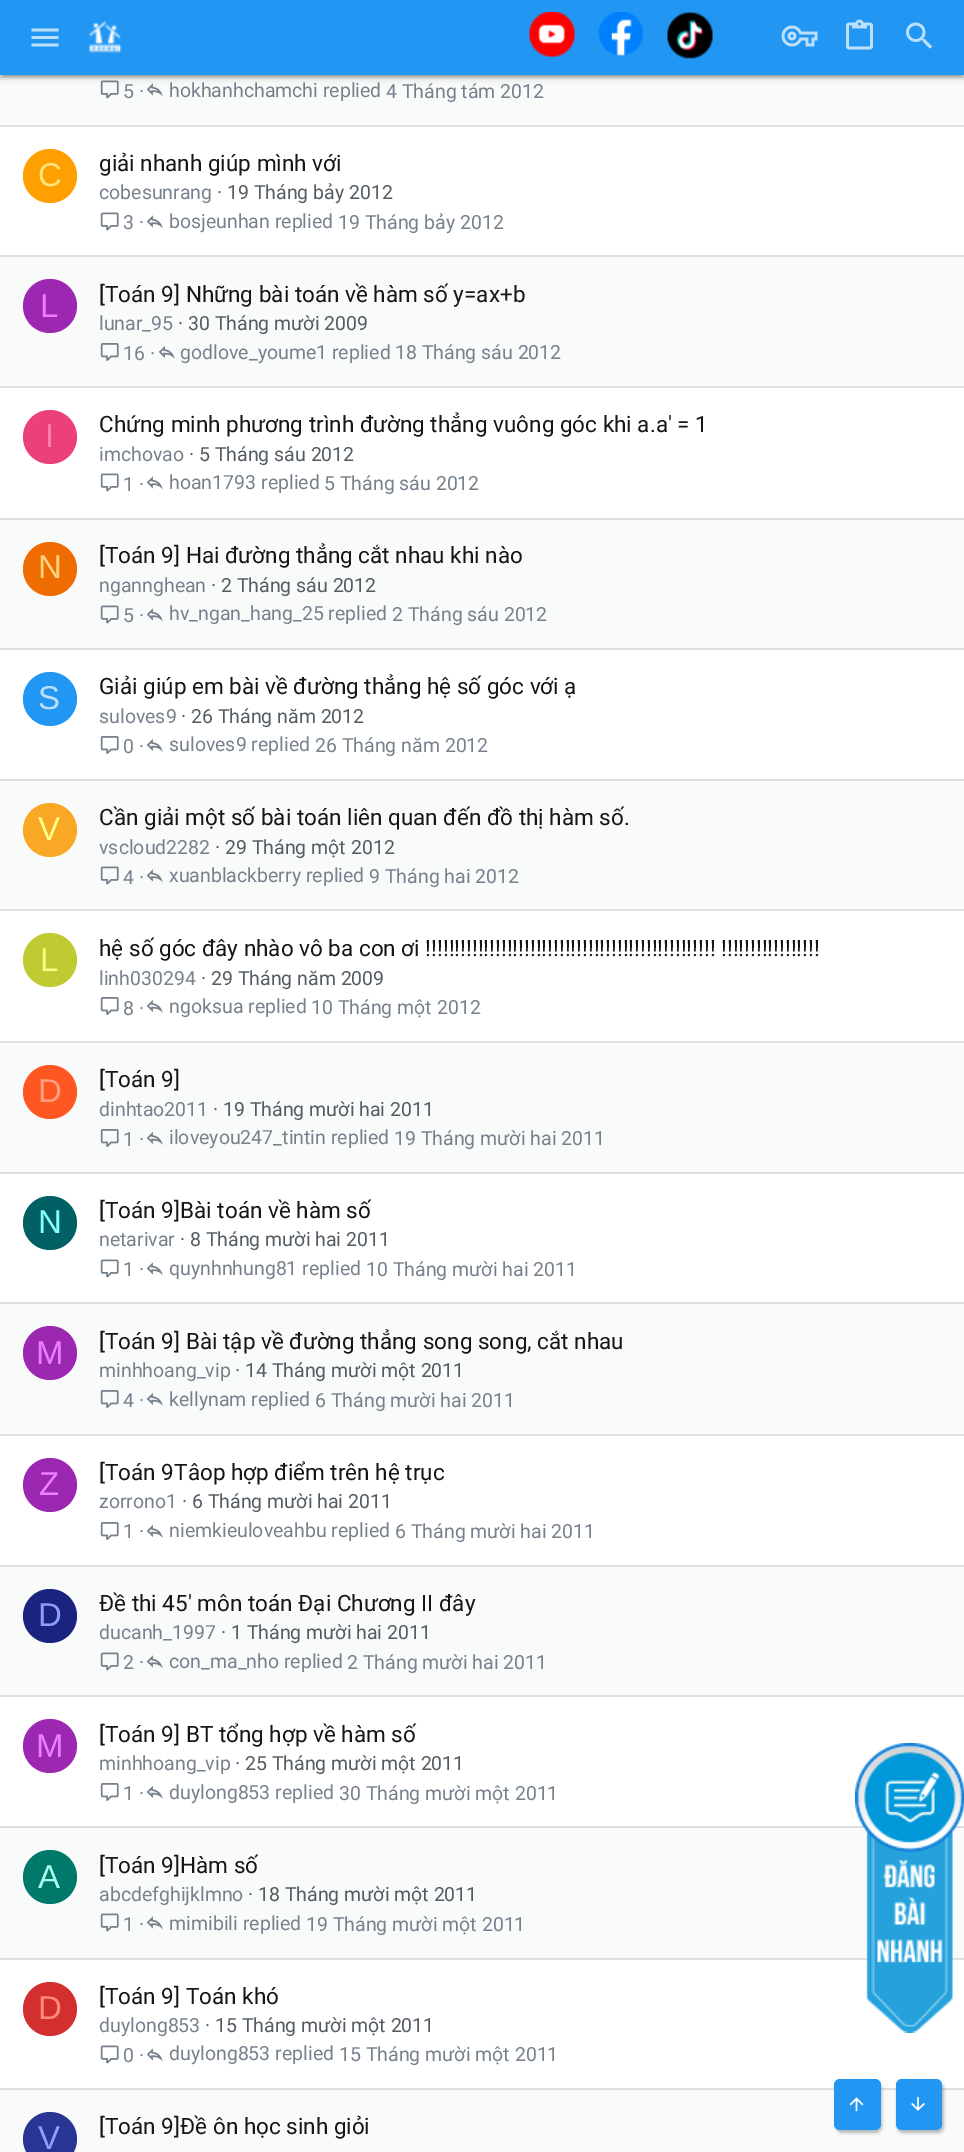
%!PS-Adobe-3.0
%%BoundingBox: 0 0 964 2152
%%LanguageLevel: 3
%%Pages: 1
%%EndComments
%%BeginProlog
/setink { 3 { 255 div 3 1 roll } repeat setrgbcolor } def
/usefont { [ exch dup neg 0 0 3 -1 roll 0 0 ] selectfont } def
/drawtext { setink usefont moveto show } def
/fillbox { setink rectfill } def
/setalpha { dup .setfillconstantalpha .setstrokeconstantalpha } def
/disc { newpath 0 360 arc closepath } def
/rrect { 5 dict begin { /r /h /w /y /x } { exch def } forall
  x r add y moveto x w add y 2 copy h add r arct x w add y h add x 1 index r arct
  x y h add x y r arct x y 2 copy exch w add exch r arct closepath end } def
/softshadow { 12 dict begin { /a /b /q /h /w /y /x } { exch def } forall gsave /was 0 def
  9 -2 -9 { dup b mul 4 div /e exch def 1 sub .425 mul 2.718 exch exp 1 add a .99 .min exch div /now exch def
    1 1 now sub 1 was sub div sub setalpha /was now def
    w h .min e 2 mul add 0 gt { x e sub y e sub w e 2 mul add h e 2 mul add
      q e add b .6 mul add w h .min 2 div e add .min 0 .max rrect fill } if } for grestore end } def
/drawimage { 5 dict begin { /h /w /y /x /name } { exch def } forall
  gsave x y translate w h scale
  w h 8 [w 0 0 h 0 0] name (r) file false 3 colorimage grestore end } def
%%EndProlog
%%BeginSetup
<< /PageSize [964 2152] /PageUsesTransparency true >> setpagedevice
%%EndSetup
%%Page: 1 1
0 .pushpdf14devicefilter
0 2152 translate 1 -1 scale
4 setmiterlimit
0 0 964 2152 255 255 255 fillbox
0 75 964 50 249 250 250 fillbox
(assets/img9.rgb) 100 80 19 19 drawimage
(assets/img10.rgb) 146 83 17 14 drawimage
0 0 0 setink
0 2 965 75 0 4 0.2 softshadow
3 8 959 69 0 1 0.12 softshadow
0 3 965 75 0 1.5 0.14 softshadow
0 0 964 75 33 150 243 fillbox
(assets/img1.rgb) 31 28 28 19 drawimage
(assets/img2.rgb) 88 21 34 32 drawimage
(assets/img3.rgb) 529 12 46 45 drawimage
(assets/img4.rgb) 598 12 46 44 drawimage
(assets/img5.rgb) 667 12 46 47 drawimage
(assets/img6.rgb) 781 25 37 22 drawimage
(assets/img7.rgb) 846 19 27 31 drawimage
(assets/img8.rgb) 906 22 27 27 drawimage
(5 ·) 123 98 /Roboto-Regular 19.5 118 129 141 drawtext
(hokhanhchamchi replied) 169 97 /Roboto-Regular 19.5 118 129 141 drawtext
(4 Tháng tám 2012) 386 98 /Roboto-Regular 19.5 118 129 141 drawtext
0 125 964 2 224 224 224 fillbox
255 160 0 setink
50 176 27 disc fill
(C) 38 186 /LiberationSans-Regular 33 255 229 127 drawtext
(giải nhanh giúp mình với) 99 171 /Roboto-Regular 22.5 20 22 24 drawtext
(cobesunrang) 99 199 /Roboto-Regular 19.5 118 129 141 drawtext
(· 19 Tháng bảy 2012) 217 199 /Roboto-Regular 19.5 83 91 99 drawtext
(assets/img11.rgb) 100 212 19 19 drawimage
(3 ·) 123 229 /Roboto-Regular 19.5 118 129 141 drawtext
(assets/img12.rgb) 146 215 17 14 drawimage
(bosjeunhan replied) 169 228 /Roboto-Regular 19.5 118 129 141 drawtext
(19 Tháng bảy 2012) 338 229 /Roboto-Regular 19.5 118 129 141 drawtext
0 257 964 129 249 250 250 fillbox
0 255 964 2 224 224 224 fillbox
156 39 176 setink
50 306 27 disc fill
(L) 40 317 /LiberationSans-Regular 33 234 128 252 drawtext
([Toán 9] Những bài toán về hàm số y=ax+b) 99 302 /Roboto-Regular 22.5 20 22 24 drawtext
(lunar_95) 99 330 /Roboto-Regular 19.5 118 129 141 drawtext
(· 30 Tháng mười 2009) 178 330 /Roboto-Regular 19.5 83 91 99 drawtext
(assets/img13.rgb) 100 343 19 18 drawimage
(16 ·) 123 360 /Roboto-Regular 19.5 118 129 141 drawtext
(assets/img14.rgb) 158 345 17 14 drawimage
(godlove_youme1 replied) 180 359 /Roboto-Regular 19.5 118 129 141 drawtext
(18 Tháng sáu 2012) 395 359 /Roboto-Regular 19.5 118 129 141 drawtext
0 386 964 2 224 224 224 fillbox
236 64 122 setink
50 437 27 disc fill
(I) 45 447 /LiberationSans-Regular 33 255 128 171 drawtext
(Chứng minh phương trình đường thẳng vuông góc khi a.a' = 1) 99 432 /Roboto-Regular 22.5 20 22 24 drawtext
(imchovao) 99 461 /Roboto-Regular 19.5 118 129 141 drawtext
(· 5 Tháng sáu 2012) 189 461 /Roboto-Regular 19.5 83 91 99 drawtext
(assets/img11.rgb) 100 473 19 19 drawimage
(1 ·) 123 491 /Roboto-Regular 19.5 118 129 141 drawtext
(assets/img12.rgb) 146 476 17 14 drawimage
(hoan1793 replied) 169 489 /Roboto-Regular 19.5 118 129 141 drawtext
(5 Tháng sáu 2012) 324 490 /Roboto-Regular 19.5 118 129 141 drawtext
0 520 964 128 249 250 250 fillbox
0 518 964 2 224 224 224 fillbox
239 108 0 setink
50 569 27 disc fill
(N) 38 578 /LiberationSans-Regular 33 255 209 128 drawtext
([Toán 9] Hai đường thẳng cắt nhau khi nào) 99 563 /Roboto-Regular 22.5 20 22 24 drawtext
(ngannghean) 99 592 /Roboto-Regular 19.5 118 129 141 drawtext
(· 2 Tháng sáu 2012) 211 592 /Roboto-Regular 19.5 83 91 99 drawtext
(assets/img9.rgb) 100 605 19 19 drawimage
(5 ·) 123 622 /Roboto-Regular 19.5 118 129 141 drawtext
(assets/img10.rgb) 146 608 17 14 drawimage
(hv_ngan_hang_25 replied) 169 620 /Roboto-Regular 19.5 118 129 141 drawtext
(2 Tháng sáu 2012) 392 621 /Roboto-Regular 19.5 118 129 141 drawtext
0 648 964 2 224 224 224 fillbox
33 150 243 setink
50 699 27 disc fill
(S) 38 709 /LiberationSans-Regular 33 187 222 251 drawtext
(Giải giúp em bài về đường thẳng hệ số góc với ạ) 99 694 /Roboto-Regular 22.5 20 22 24 drawtext
(suloves9) 99 723 /Roboto-Regular 19.5 118 129 141 drawtext
(· 26 Tháng năm 2012) 181 723 /Roboto-Regular 19.5 83 91 99 drawtext
(assets/img15.rgb) 100 736 19 18 drawimage
(0 ·) 123 753 /Roboto-Regular 19.5 118 129 141 drawtext
(assets/img16.rgb) 146 738 17 14 drawimage
(suloves9 replied) 169 751 /Roboto-Regular 19.5 118 129 141 drawtext
(26 Tháng năm 2012) 315 752 /Roboto-Regular 19.5 118 129 141 drawtext
0 781 964 128 249 250 250 fillbox
0 779 964 2 224 224 224 fillbox
249 168 37 setink
50 830 27 disc fill
(V) 38 840 /LiberationSans-Regular 33 255 255 141 drawtext
(Cần giải một số bài toán liên quan đến đồ thị hàm số.) 99 825 /Roboto-Regular 22.5 20 22 24 drawtext
(vscloud2282) 99 854 /Roboto-Regular 19.5 118 129 141 drawtext
(· 29 Tháng một 2012) 215 854 /Roboto-Regular 19.5 83 91 99 drawtext
(assets/img9.rgb) 100 866 19 19 drawimage
(4 ·) 123 884 /Roboto-Regular 19.5 118 129 141 drawtext
(assets/img10.rgb) 146 869 17 14 drawimage
(xuanblackberry replied) 169 882 /Roboto-Regular 19.5 118 129 141 drawtext
(9 Tháng hai 2012) 369 883 /Roboto-Regular 19.5 118 129 141 drawtext
0 909 964 2 224 224 224 fillbox
192 202 51 setink
50 960 27 disc fill
(L) 40 971 /LiberationSans-Regular 33 244 255 129 drawtext
(hệ số góc đây nhào vô ba con ơi !!!!!!!!!!!!!!!!!!!!!!!!!!!!!!!!!!!!!!!!!!!!!!!!!! !!!!!!!!!!!!!!!!!) 99 956 /Roboto-Regular 22.5 20 22 24 drawtext
(linh030294) 99 985 /Roboto-Regular 19.5 118 129 141 drawtext
(· 29 Tháng năm 2009) 201 985 /Roboto-Regular 19.5 83 91 99 drawtext
(assets/img15.rgb) 100 997 19 18 drawimage
(8 ·) 123 1015 /Roboto-Regular 19.5 118 129 141 drawtext
(assets/img16.rgb) 146 999 17 14 drawimage
(ngoksua replied) 169 1013 /Roboto-Regular 19.5 118 129 141 drawtext
(10 Tháng một 2012) 311 1014 /Roboto-Regular 19.5 118 129 141 drawtext
0 1043 964 129 249 250 250 fillbox
0 1041 964 2 224 224 224 fillbox
255 87 34 setink
50 1092 27 disc fill
(D) 38 1102 /LiberationSans-Regular 33 255 158 128 drawtext
([Toán 9]) 99 1087 /Roboto-Regular 22.5 20 22 24 drawtext
(dinhtao2011) 99 1116 /Roboto-Regular 19.5 118 129 141 drawtext
(· 19 Tháng mười hai 2011) 213 1116 /Roboto-Regular 19.5 83 91 99 drawtext
(assets/img13.rgb) 100 1129 19 18 drawimage
(1 ·) 123 1146 /Roboto-Regular 19.5 118 129 141 drawtext
(assets/img14.rgb) 146 1131 17 14 drawimage
(iloveyou247_tintin replied) 169 1144 /Roboto-Regular 19.5 118 129 141 drawtext
(19 Tháng mười hai 2011) 394 1145 /Roboto-Regular 19.5 118 129 141 drawtext
0 1172 964 2 224 224 224 fillbox
0 96 100 setink
50 1223 27 disc fill
(N) 38 1233 /LiberationSans-Regular 33 132 255 255 drawtext
([Toán 9]Bài toán về hàm số) 99 1218 /Roboto-Regular 22.5 20 22 24 drawtext
(netarivar) 99 1246 /Roboto-Regular 19.5 118 129 141 drawtext
(· 8 Tháng mười hai 2011) 180 1246 /Roboto-Regular 19.5 83 91 99 drawtext
(assets/img11.rgb) 100 1259 19 19 drawimage
(1 ·) 123 1276 /Roboto-Regular 19.5 118 129 141 drawtext
(assets/img12.rgb) 146 1262 17 14 drawimage
(quynhnhung81 replied) 169 1275 /Roboto-Regular 19.5 118 129 141 drawtext
(10 Tháng mười hai 2011) 366 1276 /Roboto-Regular 19.5 118 129 141 drawtext
0 1304 964 130 249 250 250 fillbox
0 1302 964 2 224 224 224 fillbox
156 39 176 setink
50 1353 27 disc fill
(M) 36 1364 /LiberationSans-Regular 33 234 128 252 drawtext
([Toán 9] Bài tập về đường thẳng song song, cắt nhau) 99 1349 /Roboto-Regular 22.5 20 22 24 drawtext
(minhhoang_vip) 99 1377 /Roboto-Regular 19.5 118 129 141 drawtext
(· 14 Tháng mười một 2011) 235 1377 /Roboto-Regular 19.5 83 91 99 drawtext
(assets/img13.rgb) 100 1390 19 18 drawimage
(4 ·) 123 1407 /Roboto-Regular 19.5 118 129 141 drawtext
(assets/img14.rgb) 146 1392 17 14 drawimage
(kellynam replied) 169 1406 /Roboto-Regular 19.5 118 129 141 drawtext
(6 Tháng mười hai 2011) 315 1407 /Roboto-Regular 19.5 118 129 141 drawtext
0 1434 964 2 224 224 224 fillbox
156 39 176 setink
50 1485 27 disc fill
(Z) 39 1495 /LiberationSans-Regular 33 234 128 252 drawtext
([Toán 9Tâop hợp điểm trên hệ trục) 99 1480 /Roboto-Regular 22.5 20 22 24 drawtext
(zorrono1) 99 1508 /Roboto-Regular 19.5 118 129 141 drawtext
(· 6 Tháng mười hai 2011) 182 1508 /Roboto-Regular 19.5 83 91 99 drawtext
(assets/img15.rgb) 100 1522 19 18 drawimage
(1 ·) 123 1538 /Roboto-Regular 19.5 118 129 141 drawtext
(assets/img16.rgb) 146 1524 17 14 drawimage
(niemkieuloveahbu replied) 169 1537 /Roboto-Regular 19.5 118 129 141 drawtext
(6 Tháng mười hai 2011) 395 1538 /Roboto-Regular 19.5 118 129 141 drawtext
0 1567 964 128 249 250 250 fillbox
0 1565 964 2 224 224 224 fillbox
26 35 126 setink
50 1616 27 disc fill
(D) 38 1626 /LiberationSans-Regular 33 140 158 255 drawtext
(Đề thi 45' môn toán Đại Chương II đây) 99 1611 /Roboto-Regular 22.5 20 22 24 drawtext
(ducanh_1997) 99 1639 /Roboto-Regular 19.5 118 129 141 drawtext
(· 1 Tháng mười hai 2011) 221 1639 /Roboto-Regular 19.5 83 91 99 drawtext
(assets/img9.rgb) 100 1652 19 19 drawimage
(2 ·) 123 1669 /Roboto-Regular 19.5 118 129 141 drawtext
(assets/img10.rgb) 146 1655 17 14 drawimage
(con_ma_nho replied) 169 1668 /Roboto-Regular 19.5 118 129 141 drawtext
(2 Tháng mười hai 2011) 347 1669 /Roboto-Regular 19.5 118 129 141 drawtext
0 1695 964 2 224 224 224 fillbox
156 39 176 setink
50 1746 27 disc fill
(M) 36 1757 /LiberationSans-Regular 33 234 128 252 drawtext
([Toán 9] BT tổng hợp về hàm số) 99 1742 /Roboto-Regular 22.5 20 22 24 drawtext
(minhhoang_vip) 99 1770 /Roboto-Regular 19.5 118 129 141 drawtext
(· 25 Tháng mười một 2011) 235 1770 /Roboto-Regular 19.5 83 91 99 drawtext
(assets/img15.rgb) 100 1783 19 18 drawimage
(1 ·) 123 1800 /Roboto-Regular 19.5 118 129 141 drawtext
(assets/img16.rgb) 146 1785 17 14 drawimage
(duylong853 replied) 169 1799 /Roboto-Regular 19.5 118 129 141 drawtext
(30 Tháng mười một 2011) 339 1800 /Roboto-Regular 19.5 118 129 141 drawtext
0 1828 964 130 249 250 250 fillbox
0 1826 964 2 224 224 224 fillbox
0 121 107 setink
50 1877 27 disc fill
(A) 38 1888 /LiberationSans-Regular 33 167 255 235 drawtext
([Toán 9]Hàm số) 99 1873 /Roboto-Regular 22.5 20 22 24 drawtext
(abcdefghijklmno) 99 1901 /Roboto-Regular 19.5 118 129 141 drawtext
(· 18 Tháng mười một 2011) 248 1901 /Roboto-Regular 19.5 83 91 99 drawtext
(assets/img9.rgb) 100 1913 19 19 drawimage
(1 ·) 123 1931 /Roboto-Regular 19.5 118 129 141 drawtext
(assets/img10.rgb) 146 1916 17 14 drawimage
(mimibili replied) 169 1930 /Roboto-Regular 19.5 118 129 141 drawtext
(19 Tháng mười một 2011) 306 1931 /Roboto-Regular 19.5 118 129 141 drawtext
0 1958 964 2 224 224 224 fillbox
211 47 47 setink
50 2009 27 disc fill
(D) 38 2019 /LiberationSans-Regular 33 255 138 128 drawtext
([Toán 9] Toán khó) 99 2004 /Roboto-Regular 22.5 20 22 24 drawtext
(duylong853) 99 2032 /Roboto-Regular 19.5 118 129 141 drawtext
(· 15 Tháng mười một 2011) 205 2032 /Roboto-Regular 19.5 83 91 99 drawtext
(assets/img11.rgb) 100 2045 19 19 drawimage
(0 ·) 123 2062 /Roboto-Regular 19.5 118 129 141 drawtext
(assets/img12.rgb) 146 2048 17 14 drawimage
(duylong853 replied) 169 2060 /Roboto-Regular 19.5 118 129 141 drawtext
(15 Tháng mười một 2011) 339 2061 /Roboto-Regular 19.5 118 129 141 drawtext
0 2090 964 62 249 250 250 fillbox
0 2088 964 2 224 224 224 fillbox
40 53 147 setink
50 2139 27 disc fill
(V) 38 2149 /LiberationSans-Regular 33 140 158 255 drawtext
([Toán 9]Đề ôn học sinh giỏi) 99 2134 /Roboto-Regular 22.5 20 22 24 drawtext
(assets/img17.rgb) 855 1743 109 290 drawimage
0 0 0 setink
836 2082 46 51 6 1.5 0.25 softshadow
33 150 243 setink
834 2079 47 51 6 rrect fill
(assets/img18.rgb) 849 2097 15 15 drawimage
0 0 0 setink
897 2082 47 51 6 1.5 0.25 softshadow
33 150 243 setink
896 2079 46 51 6 rrect fill
(assets/img19.rgb) 911 2097 14 14 drawimage
.poppdf14devicefilter showpage
%%EOF
